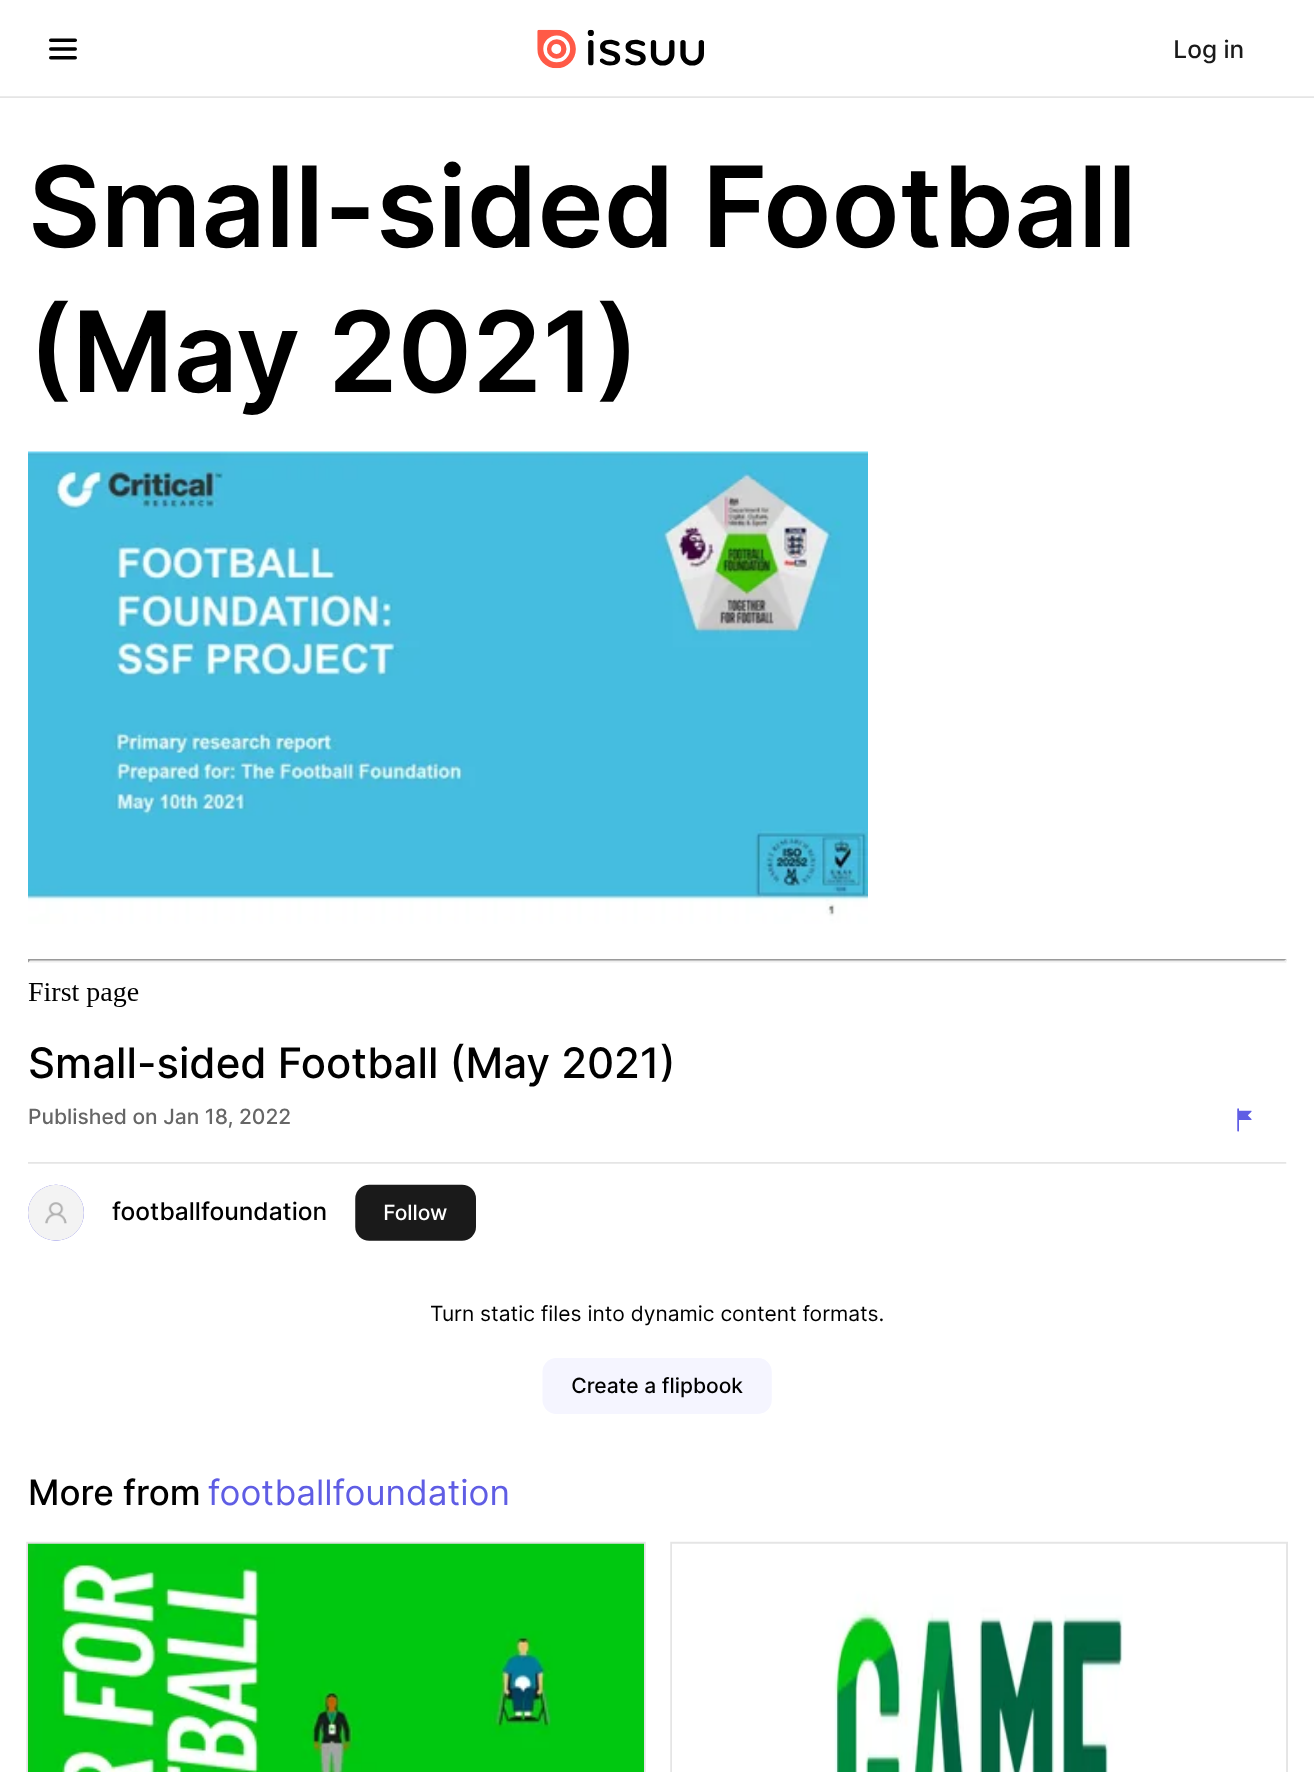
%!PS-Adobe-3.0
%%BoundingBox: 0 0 1314 1772
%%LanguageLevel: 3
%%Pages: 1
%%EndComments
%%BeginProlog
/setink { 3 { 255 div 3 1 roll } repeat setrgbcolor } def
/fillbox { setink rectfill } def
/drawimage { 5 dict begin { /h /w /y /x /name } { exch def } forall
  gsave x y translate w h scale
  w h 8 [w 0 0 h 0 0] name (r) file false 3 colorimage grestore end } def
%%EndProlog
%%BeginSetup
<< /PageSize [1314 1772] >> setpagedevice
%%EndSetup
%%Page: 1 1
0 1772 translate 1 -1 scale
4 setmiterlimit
0 0 1314 1772 255 255 255 fillbox
(assets/img1.rgb) 0 29 1314 1743 drawimage
showpage
%%EOF
